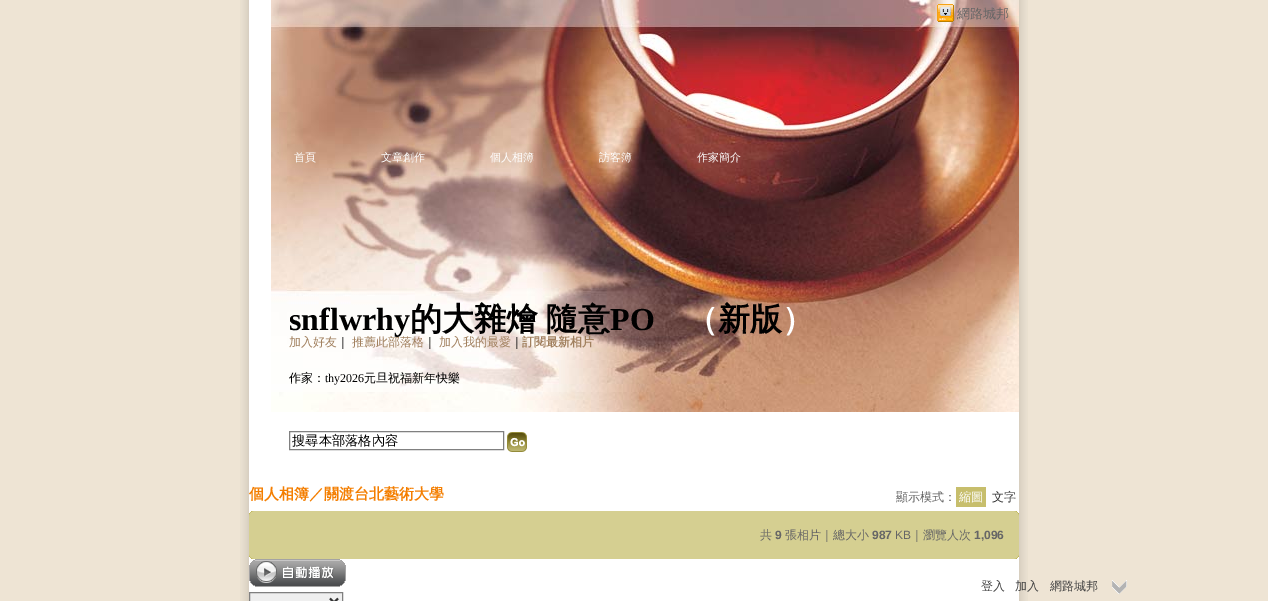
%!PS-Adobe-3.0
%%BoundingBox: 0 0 1268 601
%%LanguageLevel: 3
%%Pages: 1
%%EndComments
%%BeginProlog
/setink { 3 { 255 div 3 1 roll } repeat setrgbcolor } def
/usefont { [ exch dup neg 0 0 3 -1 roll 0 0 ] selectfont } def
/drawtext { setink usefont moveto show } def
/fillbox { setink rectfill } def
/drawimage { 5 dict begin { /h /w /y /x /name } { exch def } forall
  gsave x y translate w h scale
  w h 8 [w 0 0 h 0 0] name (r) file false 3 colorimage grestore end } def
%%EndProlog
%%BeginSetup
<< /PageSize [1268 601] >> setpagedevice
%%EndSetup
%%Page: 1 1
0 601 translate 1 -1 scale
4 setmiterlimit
0 0 1268 601 238 228 212 fillbox
(assets/img1.rgb) 240 0 788 601 drawimage
(assets/img3.rgb) 271 0 748 412 drawimage
(assets/img2.rgb) 937 4 17 18 drawimage
(網路城邦) 957 18 /WenQuanYiZenHei-Medium 13 102 102 102 drawtext
(首頁) 294 161 /WenQuanYiZenHei-Medium 11 255 255 255 drawtext
(文章創作) 381 161 /WenQuanYiZenHei-Medium 11 255 255 255 drawtext
(個人相簿) 490 161 /WenQuanYiZenHei-Medium 11 255 255 255 drawtext
(訪客簿) 599 161 /WenQuanYiZenHei-Medium 11 255 255 255 drawtext
(作家簡介) 697 161 /WenQuanYiZenHei-Medium 11 255 255 255 drawtext
(snflwrhy) 289 330 /LiberationSerif-Bold 32 0 0 0 drawtext
/WenQuanYiZenHei-Bold 32 usefont
410 330 moveto -2 0 32 (的大雜燴 隨意) widthshow
(PO) 610 330 /LiberationSerif-Bold 32 0 0 0 drawtext
(（) 686 330 /WenQuanYiZenHei-Bold 32 255 255 255 drawtext
(新版) 718 330 /WenQuanYiZenHei-Bold 32 0 0 0 drawtext
(）) 782 330 /WenQuanYiZenHei-Bold 32 255 255 255 drawtext
(加入好友) 289 346 /WenQuanYiZenHei-Medium 12 162 129 95 drawtext
(｜) 337 346 /WenQuanYiZenHei-Medium 12 0 0 0 drawtext
(推薦此部落格) 352 346 /WenQuanYiZenHei-Medium 12 162 129 95 drawtext
(｜) 424 346 /WenQuanYiZenHei-Medium 12 0 0 0 drawtext
(加入我的最愛) 439 346 /WenQuanYiZenHei-Medium 12 162 129 95 drawtext
(｜) 511 346 /WenQuanYiZenHei-Medium 12 0 0 0 drawtext
(訂閱最新相片) 522 346 /WenQuanYiZenHei-Bold 12 162 129 95 drawtext
(作家：) 289 382 /WenQuanYiZenHei-Medium 12 0 0 0 drawtext
(thy2026) 325 382 /LiberationSerif-Regular 12 0 0 0 drawtext
(元旦祝福新年快樂) 364 382 /WenQuanYiZenHei-Medium 12 0 0 0 drawtext
128 128 128 setink
289.5 431.5 214 18 rectstroke
(搜尋本部落格內容) 292 445 /WenQuanYiZenHei-Medium 13.25 0 0 0 drawtext
(assets/img4.rgb) 507 432 20 20 drawimage
(個人相簿／關渡台北藝術大學) 249 499 /WenQuanYiZenHei-Bold 15 244 126 0 drawtext
(顯示模式：) 896 501 /WenQuanYiZenHei-Medium 12 102 102 102 drawtext
956 487 30 20 199 190 108 fillbox
(縮圖) 959 501 /WenQuanYiZenHei-Medium 12 255 255 255 drawtext
(文字) 992 501 /WenQuanYiZenHei-Medium 12 51 51 51 drawtext
(assets/img5.rgb) 249 511 5 5 drawimage
254 511 760 5 213 207 145 fillbox
(assets/img6.rgb) 1014 511 5 5 drawimage
249 516 770 38 213 207 145 fillbox
(共) 760 539 /WenQuanYiZenHei-Medium 12 102 102 102 drawtext
(9) 775 539 /LiberationSans-Bold 12 102 102 102 drawtext
(張相片｜總大小) 785 539 /WenQuanYiZenHei-Medium 12 102 102 102 drawtext
(987) 872 539 /LiberationSans-Bold 12 102 102 102 drawtext
(KB) 895 539 /LiberationSans-Regular 12 102 102 102 drawtext
(｜瀏覽人次) 911 539 /WenQuanYiZenHei-Medium 12 102 102 102 drawtext
(1,096) 974 539 /LiberationSans-Bold 12 102 102 102 drawtext
(assets/img7.rgb) 249 554 5 5 drawimage
254 554 760 5 213 207 145 fillbox
(assets/img8.rgb) 1014 554 5 5 drawimage
(assets/img9.rgb) 249 559 97 28 drawimage
239 239 239 setink
249.5 592.5 moveto 342.5 592.5 lineto 342.5 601.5 lineto 249.5 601.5 lineto closepath gsave fill grestore
128 128 128 setink
stroke
51 51 51 setink
2 setlinewidth
330 598.5 moveto 334 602.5 lineto 338 598.5 lineto stroke
(登入) 981 590 /WenQuanYiZenHei-Medium 12 68 68 68 drawtext
(加入) 1015 590 /WenQuanYiZenHei-Medium 12 68 68 68 drawtext
(網路城邦) 1050 590 /WenQuanYiZenHei-Medium 12 68 68 68 drawtext
(assets/img10.rgb) 1112 580 15 14 drawimage
showpage
%%EOF
